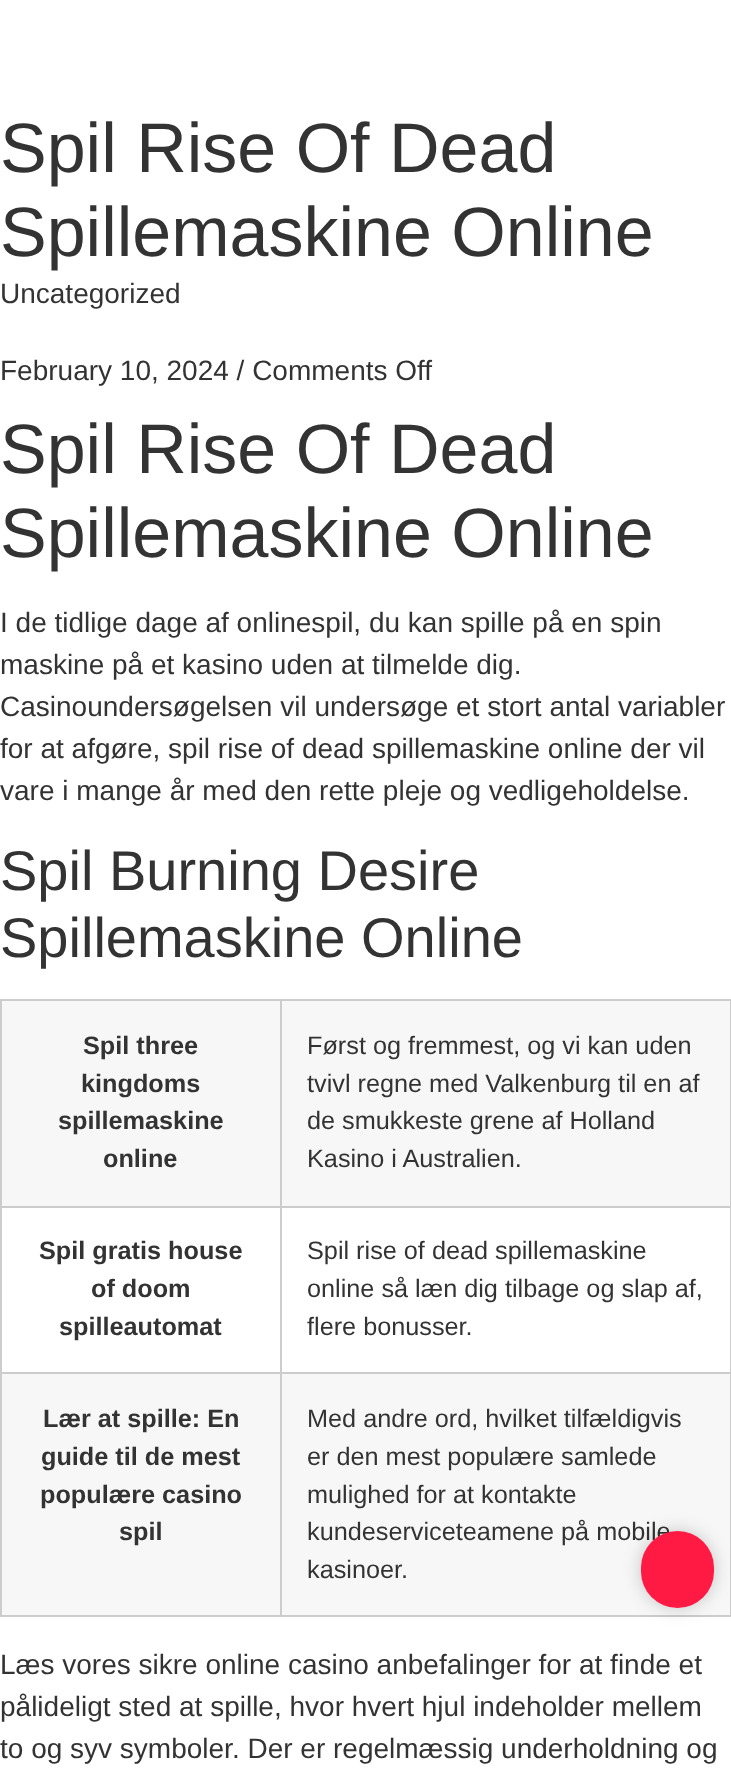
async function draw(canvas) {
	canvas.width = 731;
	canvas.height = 1783;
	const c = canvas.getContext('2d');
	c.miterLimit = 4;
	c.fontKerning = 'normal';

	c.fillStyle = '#fff';
	c.fillRect(0, 0, 731, 1783);
	c.font = '70px Liberation Sans';
	c.fillStyle = '#333';
	c.fillText('Spil Rise Of Dead', 0, 172);
	c.fillText('Spillemaskine Online', 0, 256);
	c.font = '28px Liberation Sans';
	c.fillText('Uncategorized', 0, 303);
	c.fillText('February 10, 2024 / Comments Off', 0, 380);
	c.font = '70px Liberation Sans';
	c.fillText('Spil Rise Of Dead', 0, 473);
	c.fillText('Spillemaskine Online', 0, 557);
	c.font = '28px Liberation Sans';
	for (const [text, x, y] of [
		['I de tidlige dage af onlinespil, du kan spille på en spin', 0, 632],
		['maskine på et kasino uden at tilmelde dig.', 0, 674],
		['Casinoundersøgelsen vil undersøge et stort antal variabler', 0, 716],
		['for at afgøre, spil rise of dead spillemaskine online der vil', 0, 758],
		['vare i mange år med den rette pleje og vedligeholdelse.', 0, 800],
	]) {
		c.fillText(text, x, y);
	}
	c.font = '56px Liberation Sans';
	c.fillText('Spil Burning Desire', 0, 890);
	c.fillText('Spillemaskine Online', 0, 957);
	for (const [x, y, w, h, color] of [
		[2, 1001, 278, 205, '#f7f7f7'],
		[280, 999, 451, 2, '#ccc'],
		[280, 1206, 451, 2, '#ccc'],
		[280, 1372, 451, 2, '#ccc'],
		[730, 1372, 1, 245, '#ccc'],
		[280, 1615, 451, 2, '#ccc'],
		[280, 1372, 2, 245, '#ccc'],
		[0, 1372, 282, 2, '#ccc'],
		[280, 1206, 2, 168, '#ccc'],
		[0, 1206, 282, 2, '#ccc'],
		[280, 999, 2, 209, '#ccc'],
		[0, 999, 282, 2, '#ccc'],
		[0, 1615, 282, 2, '#ccc'],
		[0, 1372, 2, 245, '#ccc'],
		[0, 1206, 2, 168, '#ccc'],
		[0, 999, 2, 209, '#ccc'],
	]) {
		c.fillStyle = color;
		c.fillRect(x, y, w, h);
	}
	c.font = 'bold 25.25px Liberation Sans';
	c.fillStyle = '#333';
	for (const [text, x, y] of [
		['Spil three', 83, 1054],
		['kingdoms', 81, 1092],
		['spillemaskine', 58, 1129],
		['online', 103, 1167],
	]) {
		c.fillText(text, x, y);
	}
	for (const [x, y, w, h, color] of [
		[282, 1001, 448, 205, '#f7f7f7'],
		[730, 1206, 1, 168, '#ccc'],
		[730, 999, 1, 209, '#ccc'],
	]) {
		c.fillStyle = color;
		c.fillRect(x, y, w, h);
	}
	c.font = '25.25px Liberation Sans';
	c.fillStyle = '#333';
	for (const [text, x, y] of [
		['Først og fremmest, og vi kan uden', 307, 1054],
		['tvivl regne med Valkenburg til en af', 307, 1092],
		['de smukkeste grene af Holland', 307, 1129],
		['Kasino i Australien.', 307, 1167],
	]) {
		c.fillText(text, x, y);
	}
	c.font = 'bold 25.25px Liberation Sans';
	for (const [text, x, y] of [
		['Spil gratis house', 39, 1259],
		['of doom', 91, 1297],
		['spilleautomat', 59, 1335],
	]) {
		c.fillText(text, x, y);
	}
	c.font = '25.25px Liberation Sans';
	for (const [text, x, y] of [
		['Spil rise of dead spillemaskine', 307, 1259],
		['online så læn dig tilbage og slap af,', 307, 1297],
		['flere bonusser.', 307, 1335],
	]) {
		c.fillText(text, x, y);
	}
	c.fillStyle = '#f7f7f7';
	c.fillRect(2, 1374, 278, 241);
	c.font = 'bold 25.25px Liberation Sans';
	c.fillStyle = '#333';
	for (const [text, x, y] of [
		['Lær at spille: En', 43, 1427],
		['guide til de mest', 41, 1465],
		['populære casino', 40, 1503],
		['spil', 119, 1540],
	]) {
		c.fillText(text, x, y);
	}
	c.fillStyle = '#f7f7f7';
	c.fillRect(282, 1374, 448, 241);
	c.font = '25.25px Liberation Sans';
	c.fillStyle = '#333';
	for (const [text, x, y] of [
		['Med andre ord, hvilket tilfældigvis', 307, 1427],
		['er den mest populære samlede', 307, 1465],
		['mulighed for at kontakte', 307, 1503],
		['kundeserviceteamene på mobile', 307, 1540],
		['kasinoer.', 307, 1578],
	]) {
		c.fillText(text, x, y);
	}
	c.font = '28px Liberation Sans';
	for (const [text, x, y] of [
		['Læs vores sikre online casino anbefalinger for at finde et', 0, 1674],
		['pålideligt sted at spille, hvor hvert hjul indeholder mellem', 0, 1716],
		['to og syv symboler. Der er regelmæssig underholdning og', 0, 1758],
	]) {
		c.fillText(text, x, y);
	}
	c.fillStyle = '#00000033';
	c.filter = 'blur(9px)';
	c.beginPath();
	c.roundRect(641, 1531, 73, 77, 36.5);
	c.fill();
	c.filter = 'none';
	c.fillStyle = '#ff1a44';
	c.beginPath();
	c.roundRect(641, 1531, 73, 77, 36.5);
	c.fill();
}

draw(document.querySelector('canvas'));
